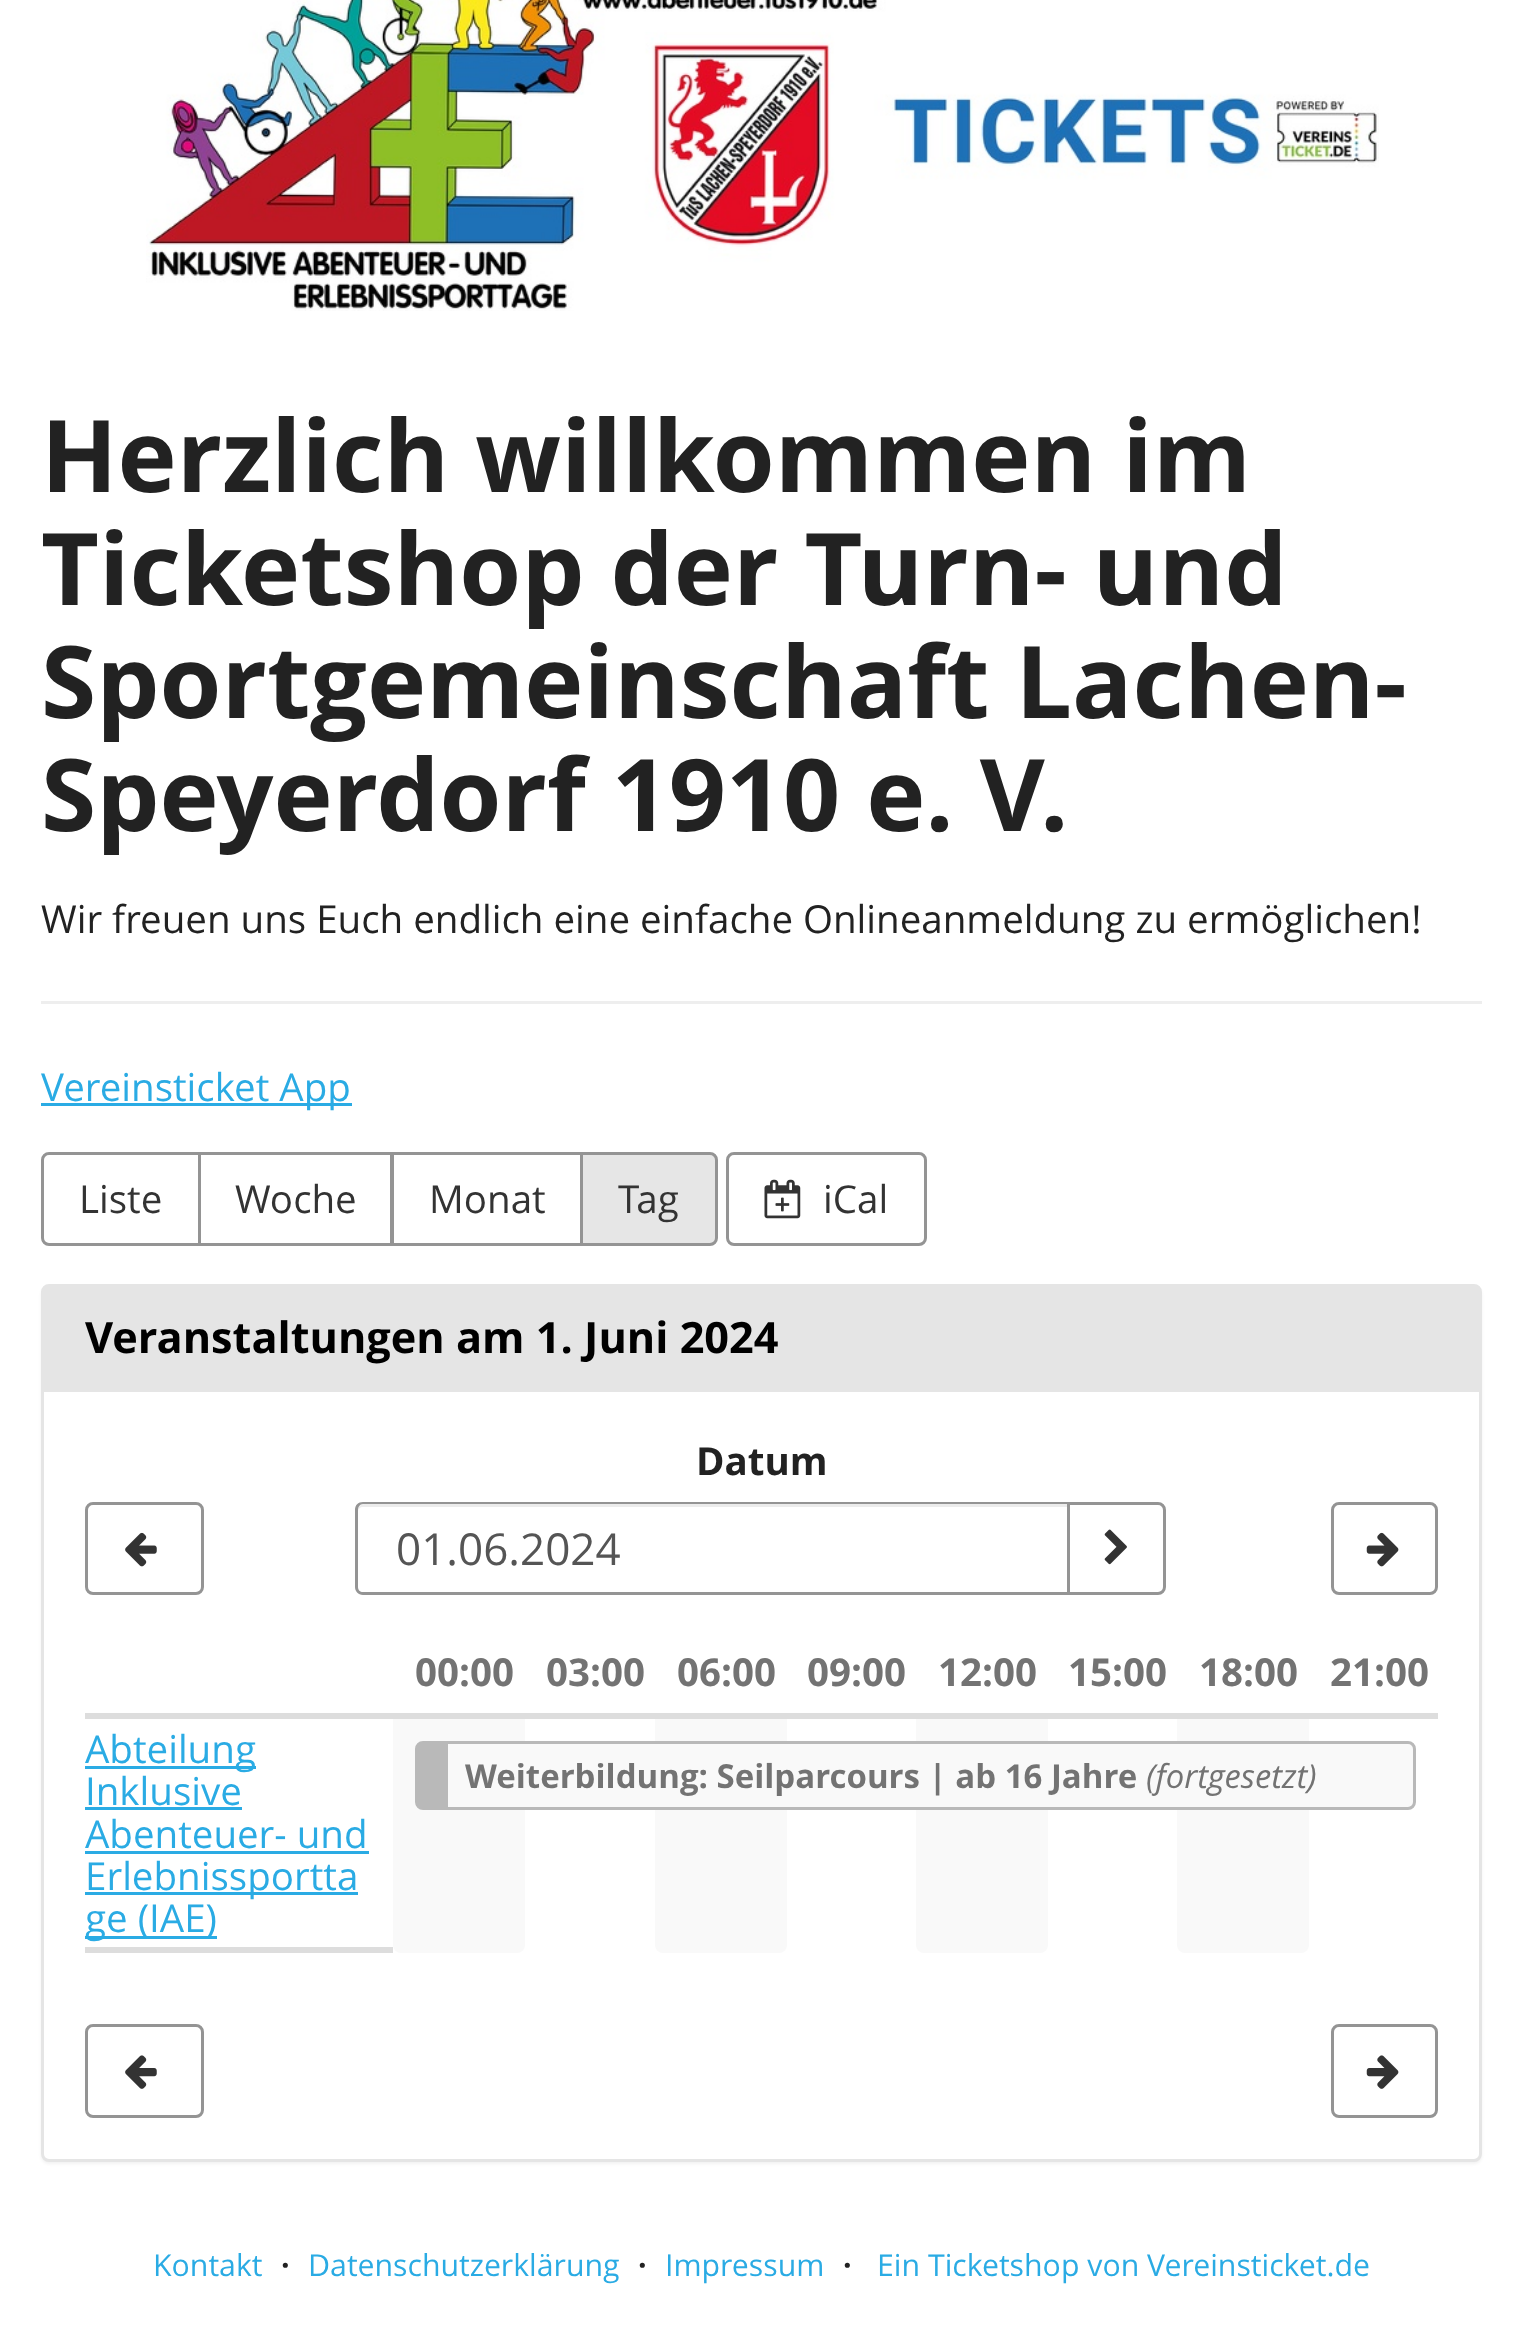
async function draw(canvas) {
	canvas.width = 1521;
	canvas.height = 2333;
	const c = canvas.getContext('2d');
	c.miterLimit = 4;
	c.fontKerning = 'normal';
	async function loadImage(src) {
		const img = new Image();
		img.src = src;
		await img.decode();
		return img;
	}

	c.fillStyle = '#fff';
	c.fillRect(0, 0, 1521, 2333);
	c.drawImage(await loadImage('img1.png'), 146, 0, 1233, 311);
	c.font = 'bold 100.1px Open Sans';
	c.fillStyle = '#222';
	for (const [text, x, y] of [
		['Herzlich willkommen im', 41, 492],
		['Ticketshop der Turn- und', 41, 605],
		['Sportgemeinschaft Lachen-', 41, 718],
		['Speyerdorf 1910 e. V.', 41, 831],
	]) {
		c.fillText(text, x, y);
	}
	c.font = '38.5px Open Sans';
	c.fillText('Wir freuen uns Euch endlich eine einfache Onlineanmeldung zu ermöglichen!', 41, 933);
	c.fillStyle = '#eee';
	c.fillRect(41, 1001, 1441, 3);
	c.fillStyle = '#2aabe4';
	c.fillRect(41, 1103, 311, 3);
	c.fillText('Vereinsticket App', 41, 1101);
	c.beginPath();
	c.roundRect(42.5, 1153.5, 157, 91, [6.5, 0, 0, 6.5]);
	c.strokeStyle = '#949494';
	c.lineWidth = 3;
	c.stroke();
	c.fillStyle = '#333';
	c.fillText('Liste', 79, 1213);
	c.strokeRect(199.5, 1153.5, 192, 91);
	c.fillText('Woche', 235, 1213);
	c.strokeRect(392.5, 1153.5, 189, 91);
	c.fillText('Monat', 429, 1213);
	c.fillStyle = '#e6e6e6';
	c.beginPath();
	c.roundRect(581.5, 1153.5, 135, 91, [0, 6.5, 6.5, 0]);
	c.fill();
	c.stroke();
	c.fillStyle = '#333';
	c.fillText('Tag', 618, 1213);
	c.beginPath();
	c.roundRect(727.5, 1153.5, 198, 91, 6.5);
	c.stroke();
	c.drawImage(await loadImage('img2.png'), 764, 1179, 37, 40);
	c.fillText('iCal', 823, 1213);
	c.fillStyle = '#0000000d';
	c.filter = 'blur(1.5px)';
	c.beginPath();
	c.roundRect(41, 1287, 1441, 877, 8);
	c.fill();
	c.filter = 'none';
	c.fillStyle = '#fff';
	c.beginPath();
	c.roundRect(42.5, 1285.5, 1438, 875, 6.5);
	c.fill();
	c.strokeStyle = '#e5e5e5';
	c.stroke();
	c.fillStyle = '#e5e5e5';
	c.fillRect(44, 1287, 1435, 105);
	c.font = 'bold 43.25px Open Sans';
	c.fillStyle = '#000';
	c.fillText('Veranstaltungen am 1. Juni 2024', 85, 1353);
	c.beginPath();
	c.roundRect(86.5, 1503.5, 116, 90, 6.5);
	c.strokeStyle = '#949494';
	c.stroke();
	c.drawImage(await loadImage('img3.png'), 125, 1532, 32, 35);
	c.font = 'bold 38.5px Open Sans';
	c.fillStyle = '#222';
	c.fillText('Datum', 696, 1475);
	c.fillStyle = '#ececec';
	c.beginPath();
	c.moveTo(363, 1507);
	c.lineTo(1067, 1507);
	c.lineTo(1067, 1504);
	c.lineTo(364, 1504);
	c.bezierCurveTo(361, 1504, 358, 1507, 358, 1510);
	c.lineTo(358, 1512);
	c.bezierCurveTo(358, 1509, 360, 1507, 363, 1507);
	c.closePath();
	c.fill();
	c.fillStyle = '#949494';
	c.beginPath();
	c.moveTo(363, 1502);
	c.lineTo(1067, 1502);
	c.lineTo(1067, 1595);
	c.lineTo(363, 1595);
	c.bezierCurveTo(358, 1595, 355, 1591, 355, 1587);
	c.lineTo(355, 1510);
	c.bezierCurveTo(355, 1505, 358, 1502, 363, 1502);
	c.closePath();
	c.moveTo(363, 1504);
	c.lineTo(1067, 1504);
	c.lineTo(1067, 1592);
	c.lineTo(363, 1592);
	c.bezierCurveTo(360, 1592, 358, 1590, 358, 1587);
	c.lineTo(358, 1510);
	c.bezierCurveTo(358, 1507, 360, 1504, 363, 1504);
	c.closePath();
	c.fill('evenodd');
	c.font = '44px Open Sans';
	c.fillStyle = '#555';
	c.fillText('01.06.2024', 396, 1565);
	c.beginPath();
	c.roundRect(1068.5, 1503.5, 96, 90, [0, 6.5, 6.5, 0]);
	c.stroke();
	c.drawImage(await loadImage('img4.png'), 1104, 1529, 23, 36);
	c.beginPath();
	c.roundRect(1332.5, 1503.5, 104, 90, 6.5);
	c.stroke();
	c.drawImage(await loadImage('img5.png'), 1366, 1532, 33, 35);
	c.fillStyle = '#ddd';
	c.fillRect(85, 1713, 1353, 6);
	c.font = 'bold 38.5px Open Sans';
	c.fillStyle = '#737373';
	for (const [text, x, y] of [
		['00:00', 415, 1686],
		['03:00', 546, 1686],
		['06:00', 677, 1686],
		['09:00', 807, 1686],
		['12:00', 938, 1686],
		['15:00', 1068, 1686],
		['18:00', 1199, 1686],
		['21:00', 1330, 1686],
	]) {
		c.fillText(text, x, y);
	}
	c.fillStyle = '#ddd';
	c.fillRect(85, 1947, 308, 6);
	c.fillStyle = '#2aabe4';
	c.fillRect(85, 1766, 171, 3);
	c.font = '38.5px Open Sans';
	c.fillText('Abteilung', 85, 1763);
	c.fillText('Inklusive', 85, 1805);
	c.fillRect(85, 1807, 157, 3);
	c.fillText('Abenteuer- und', 85, 1848);
	c.fillRect(85, 1851, 284, 3);
	c.fillRect(85, 1892, 273, 3);
	c.fillText('Erlebnissportta', 85, 1890);
	c.fillRect(85, 1936, 132, 3);
	c.fillText('ge (IAE)', 85, 1932);
	c.fillStyle = '#f9f9f9';
	c.beginPath();
	c.roundRect(393, 1719, 132, 234, [0, 0, 8, 8]);
	c.fill();
	c.beginPath();
	c.roundRect(655, 1719, 132, 234, [0, 0, 8, 8]);
	c.fill();
	c.beginPath();
	c.roundRect(916, 1719, 132, 234, [0, 0, 8, 8]);
	c.fill();
	c.beginPath();
	c.roundRect(1177, 1719, 132, 234, [0, 0, 8, 8]);
	c.fill();
	c.beginPath();
	c.roundRect(416.5, 1742.5, 998, 66, 6.5);
	c.fill();
	c.strokeStyle = '#b9b9b9';
	c.stroke();
	c.fillStyle = '#b9b9b9';
	c.fillRect(418, 1744, 30, 63);
	c.font = 'bold 33px Open Sans';
	c.fillStyle = '#737373';
	c.fillText('Weiterbildung: Seilparcours | ab 16 Jahre', 465, 1788);
	c.font = 'italic 33px Open Sans';
	c.fillText('(fortgesetzt)', 1146, 1788);
	c.beginPath();
	c.roundRect(86.5, 2025.5, 116, 91, 6.5);
	c.strokeStyle = '#949494';
	c.stroke();
	c.drawImage(await loadImage('img6.png'), 125, 2055, 32, 34);
	c.beginPath();
	c.roundRect(1332.5, 2025.5, 104, 91, 6.5);
	c.stroke();
	c.drawImage(await loadImage('img7.png'), 1366, 2055, 33, 34);
	c.font = '30.25px Open Sans';
	c.fillStyle = '#2aabe4';
	c.fillText('Kontakt', 153, 2276);
	c.font = 'bold 30.25px Open Sans';
	c.fillStyle = '#222';
	c.fillText('·', 281, 2276);
	c.font = '30.25px Open Sans';
	c.fillStyle = '#2aabe4';
	c.fillText('Datenschutzerklärung', 308, 2276);
	c.font = 'bold 30.25px Open Sans';
	c.fillStyle = '#222';
	c.fillText('·', 638, 2276);
	c.font = '30.25px Open Sans';
	c.fillStyle = '#2aabe4';
	c.fillText('Impressum', 665, 2276);
	c.font = 'bold 30.25px Open Sans';
	c.fillStyle = '#222';
	c.fillText('·', 843, 2276);
	c.font = '30.25px Open Sans';
	c.fillStyle = '#2aabe4';
	c.fillText('Ein Ticketshop von Vereinsticket.de', 877, 2276);
}

draw(document.querySelector('canvas'));
